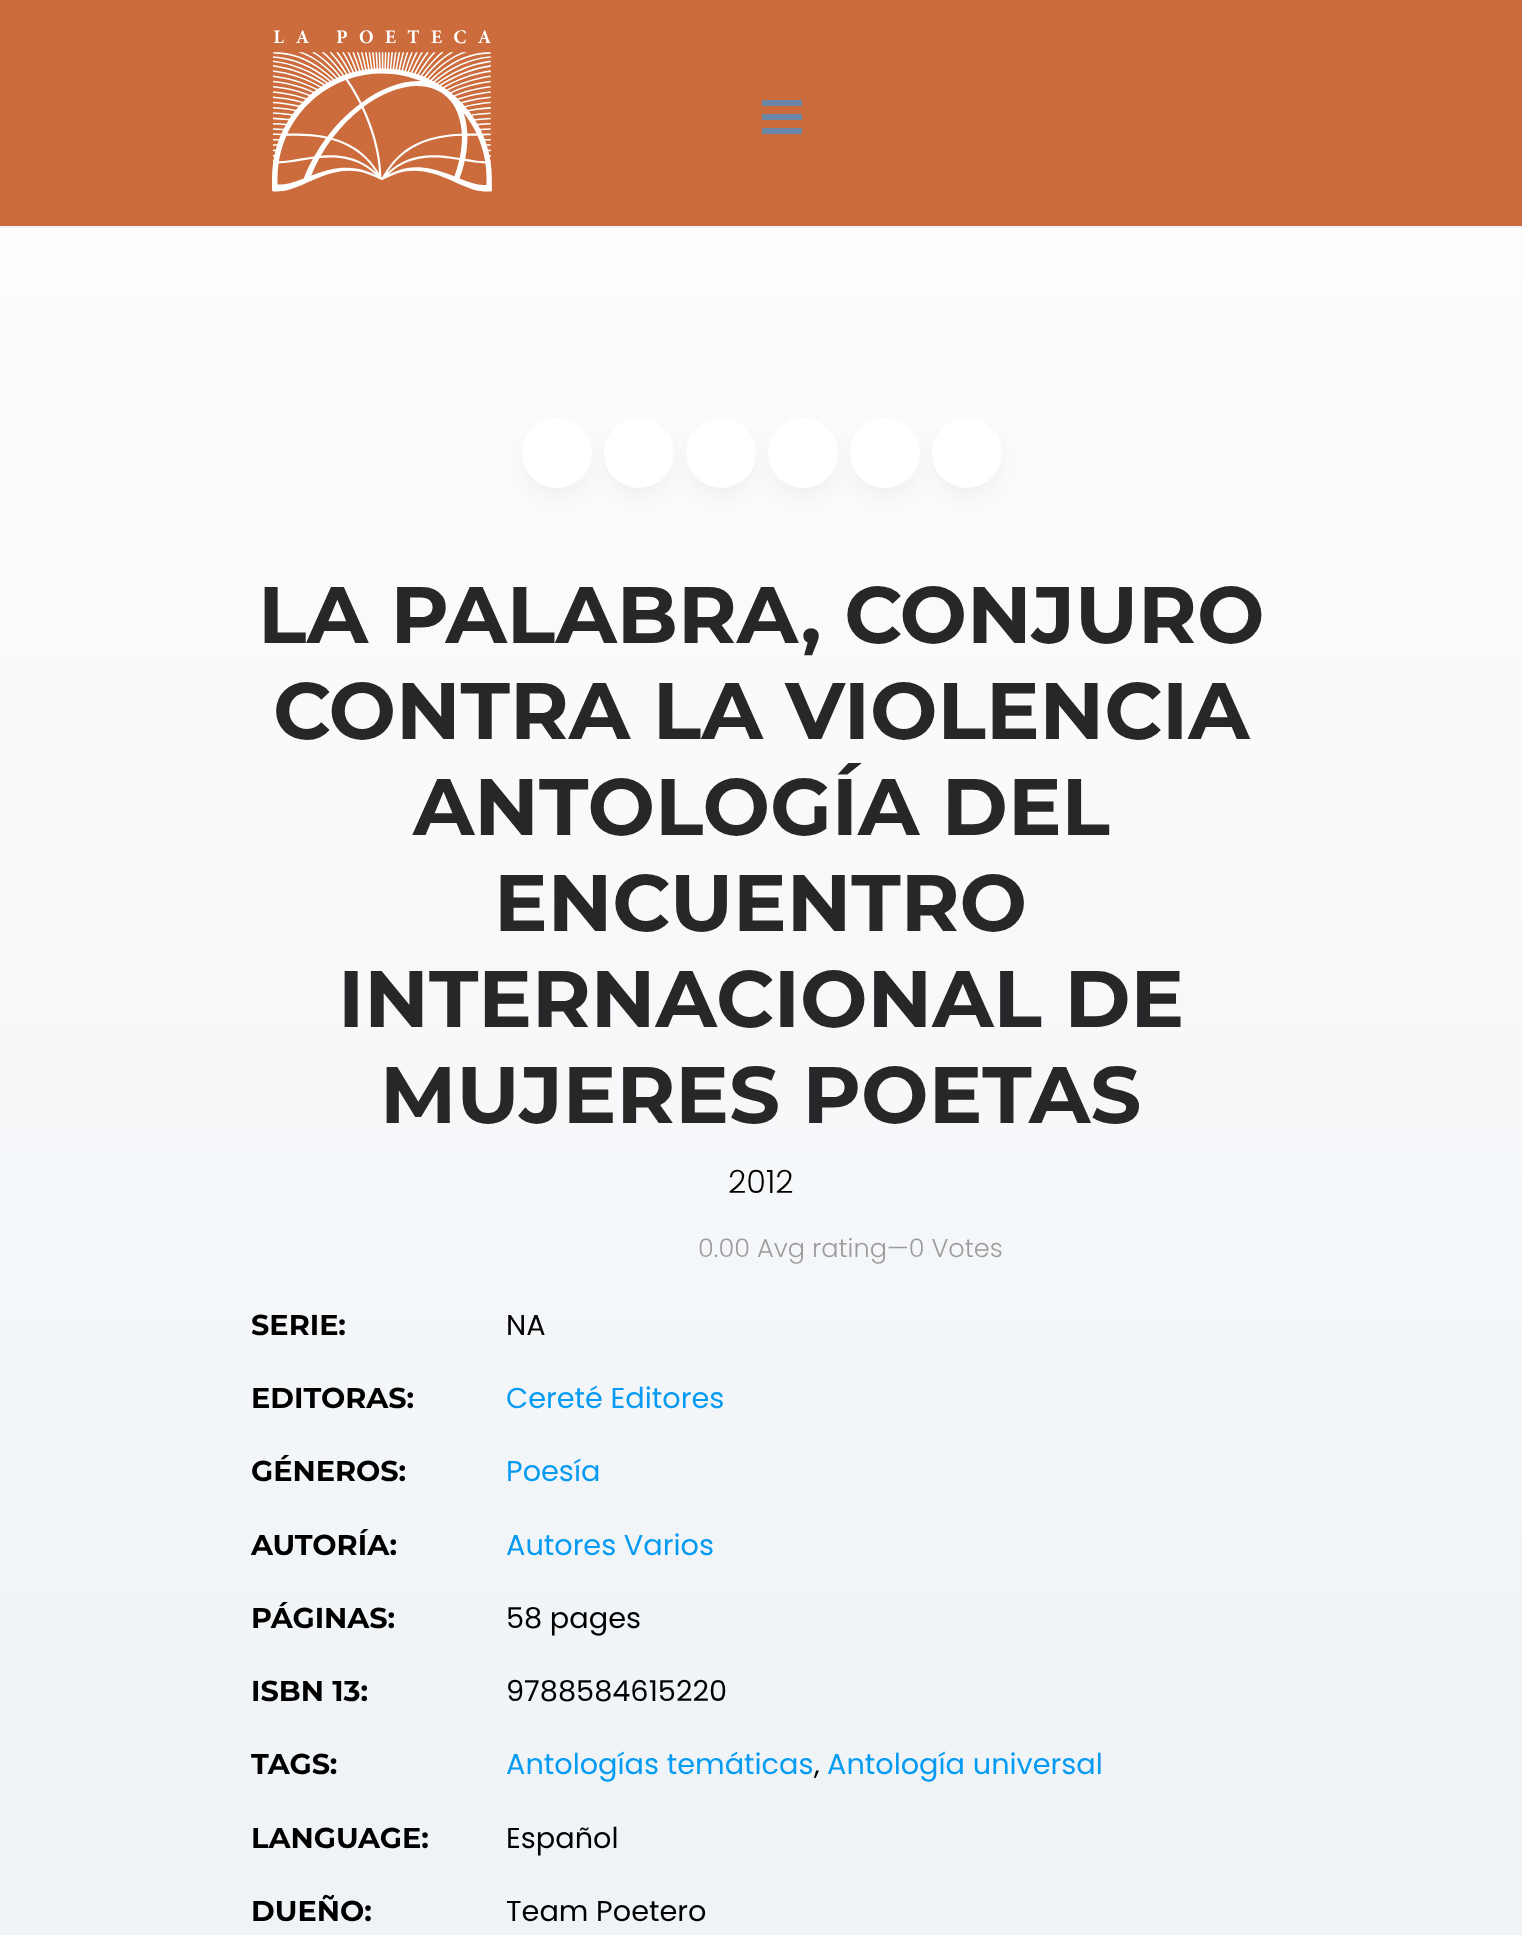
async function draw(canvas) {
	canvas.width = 1522;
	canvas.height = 1935;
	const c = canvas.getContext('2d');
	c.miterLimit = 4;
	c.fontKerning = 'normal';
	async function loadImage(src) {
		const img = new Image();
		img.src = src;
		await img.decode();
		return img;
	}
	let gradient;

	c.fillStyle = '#fff';
	c.fillRect(0, 0, 1522, 1935);
	gradient = c.createLinearGradient(761, 0, 761, 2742);
	gradient.addColorStop(0, '#fefefe');
	gradient.addColorStop(1, '#e9eef3');
	c.fillStyle = gradient;
	c.fillRect(0, 228, 1522, 1707);
	c.fillStyle = '#cc6c3c';
	c.fillRect(0, 0, 1522, 226);
	c.fillStyle = '#f3f3f3';
	c.fillRect(0, 226, 1522, 2);
	c.drawImage(await loadImage('img1.png'), 272, 30, 220, 162);
	for (const [x, y, w, h, color] of [
		[762, 114, 40, 6, '#6a85a6'],
		[762, 100, 40, 6, '#6a85a6'],
		[762, 128, 40, 6, '#6a85a6'],
	]) {
		c.fillStyle = color;
		c.fillRect(x, y, w, h);
	}
	c.fillStyle = '#0303031a';
	c.filter = 'blur(15px)';
	c.beginPath();
	c.roundRect(532, 438, 50, 50, 25);
	c.fill();
	c.filter = 'none';
	c.fillStyle = '#fff';
	c.beginPath();
	c.arc(557, 453, 35, 0, 2 * Math.PI);
	c.fill();
	c.fillStyle = '#0000001a';
	c.filter = 'blur(15px)';
	c.beginPath();
	c.roundRect(614, 438, 50, 50, 25);
	c.fill();
	c.filter = 'none';
	c.fillStyle = '#fff';
	c.beginPath();
	c.arc(639, 453, 35, 0, 2 * Math.PI);
	c.fill();
	c.fillStyle = '#0000001a';
	c.filter = 'blur(15px)';
	c.beginPath();
	c.roundRect(696, 438, 50, 50, 25);
	c.fill();
	c.filter = 'none';
	c.fillStyle = '#fff';
	c.beginPath();
	c.arc(721, 453, 35, 0, 2 * Math.PI);
	c.fill();
	c.fillStyle = '#0000001a';
	c.filter = 'blur(15px)';
	c.beginPath();
	c.roundRect(778, 438, 50, 50, 25);
	c.fill();
	c.filter = 'none';
	c.fillStyle = '#fff';
	c.beginPath();
	c.arc(803, 453, 35, 0, 2 * Math.PI);
	c.fill();
	c.fillStyle = '#0000001a';
	c.filter = 'blur(15px)';
	c.beginPath();
	c.roundRect(860, 438, 50, 50, 25);
	c.fill();
	c.filter = 'none';
	c.fillStyle = '#fff';
	c.beginPath();
	c.arc(885, 453, 35, 0, 2 * Math.PI);
	c.fill();
	c.fillStyle = '#0000001a';
	c.filter = 'blur(15px)';
	c.beginPath();
	c.roundRect(942, 438, 50, 50, 25);
	c.fill();
	c.filter = 'none';
	c.fillStyle = '#fff';
	c.beginPath();
	c.arc(967, 453, 35, 0, 2 * Math.PI);
	c.fill();
	c.font = 'bold 80px Montserrat';
	c.fillStyle = '#272629';
	for (const [text, x, y] of [
		['LA PALABRA, CONJURO', 258, 643],
		['CONTRA LA VIOLENCIA', 273, 739],
		['ANTOLOGÍA DEL', 413, 835],
		['ENCUENTRO', 494, 931],
		['INTERNACIONAL DE', 338, 1027],
		['MUJERES POETAS', 380, 1123],
	]) {
		c.fillText(text, x, y);
	}
	c.font = '300 32px Poppins';
	c.fillStyle = '#000';
	c.fillText('2012', 728, 1193);
	c.font = '300 25.6px Poppins';
	c.fillStyle = '#9c9c9c';
	c.fillText('0.00 Avg rating—0 Votes', 698, 1257);
	c.font = 'bold 28.75px Montserrat';
	c.fillStyle = '#000';
	c.fillText('SERIE:', 251, 1335);
	c.font = '28.75px Poppins';
	c.fillText('NA', 506, 1335);
	c.font = 'bold 28.75px Montserrat';
	c.fillText('EDITORAS:', 251, 1408);
	c.font = '28.75px Poppins';
	c.fillStyle = '#059bf3';
	c.fillText('Cereté Editores', 506, 1408);
	c.font = 'bold 28.75px Montserrat';
	c.fillStyle = '#000';
	c.fillText('GÉNEROS:', 251, 1481);
	c.font = '28.75px Poppins';
	c.fillStyle = '#059bf3';
	c.fillText('Poesía', 506, 1481);
	c.font = 'bold 28.75px Montserrat';
	c.fillStyle = '#000';
	c.fillText('AUTORÍA:', 251, 1555);
	c.font = '28.75px Poppins';
	c.fillStyle = '#059bf3';
	c.fillText('Autores Varios', 506, 1555);
	c.font = 'bold 28.75px Montserrat';
	c.fillStyle = '#000';
	c.fillText('PÁGINAS:', 251, 1628);
	c.font = '28.75px Poppins';
	c.fillText('58 pages', 506, 1628);
	c.font = 'bold 28.75px Montserrat';
	c.fillText('ISBN 13:', 251, 1701);
	c.font = '28.75px Poppins';
	c.fillText('9788584615220', 506, 1701);
	c.font = 'bold 28.75px Montserrat';
	c.fillText('TAGS:', 251, 1774);
	c.font = '28.75px Poppins';
	c.fillStyle = '#059bf3';
	c.fillText('Antologías temáticas', 506, 1774);
	c.fillStyle = '#000';
	c.fillText(',', 814, 1774);
	c.fillStyle = '#059bf3';
	c.fillText('Antología universal', 827, 1774);
	c.font = 'bold 28.75px Montserrat';
	c.fillStyle = '#000';
	c.fillText('LANGUAGE:', 251, 1848);
	c.font = '28.75px Poppins';
	c.fillText('Español', 506, 1848);
	c.font = 'bold 28.75px Montserrat';
	c.fillText('DUEÑO:', 251, 1921);
	c.font = '28.75px Poppins';
	c.fillText('Team Poetero', 506, 1921);
}

draw(document.querySelector('canvas'));
